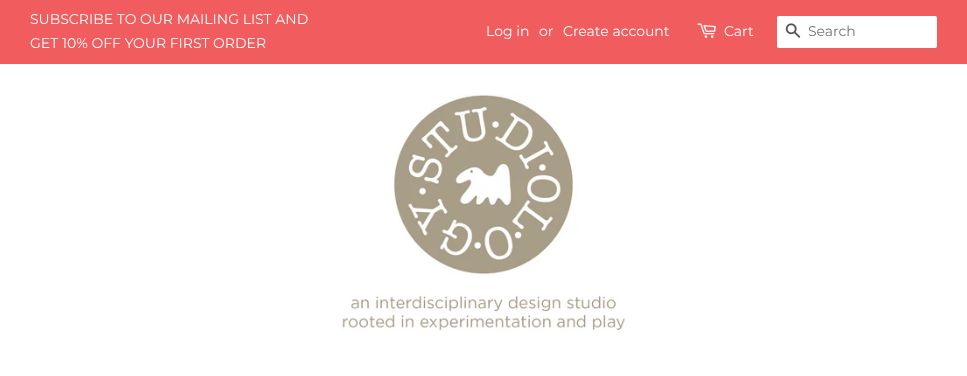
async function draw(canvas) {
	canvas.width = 967;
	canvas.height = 376;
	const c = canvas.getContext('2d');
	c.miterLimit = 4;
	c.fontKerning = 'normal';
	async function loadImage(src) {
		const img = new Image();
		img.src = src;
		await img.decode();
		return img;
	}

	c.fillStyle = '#fff';
	c.fillRect(0, 0, 967, 376);
	c.fillStyle = '#f15c5e';
	c.fillRect(0, 0, 967, 64);
	c.font = '14px Montserrat';
	c.fillStyle = '#fff';
	for (const [text, x, y] of [
		['SUBSCRIBE TO OUR MAILING LIST AND', 30, 24],
		['GET 10% OFF YOUR FIRST ORDER', 30, 48],
		['Log in', 486, 36],
		['or', 539, 36],
		['Create account', 563, 36],
	]) {
		c.fillText(text, x, y);
	}
	c.drawImage(await loadImage('img1.png'), 697, 23, 19, 15);
	c.fillText('Cart', 724, 36);
	c.beginPath();
	c.roundRect(777, 16, 160, 32, 2);
	c.fill();
	c.drawImage(await loadImage('img2.png'), 785, 23, 16, 15);
	c.fillStyle = '#757575';
	c.fillText('Search', 808, 36);
	c.drawImage(await loadImage('img3.png'), 340, 94, 287, 238);
}

draw(document.querySelector('canvas'));
